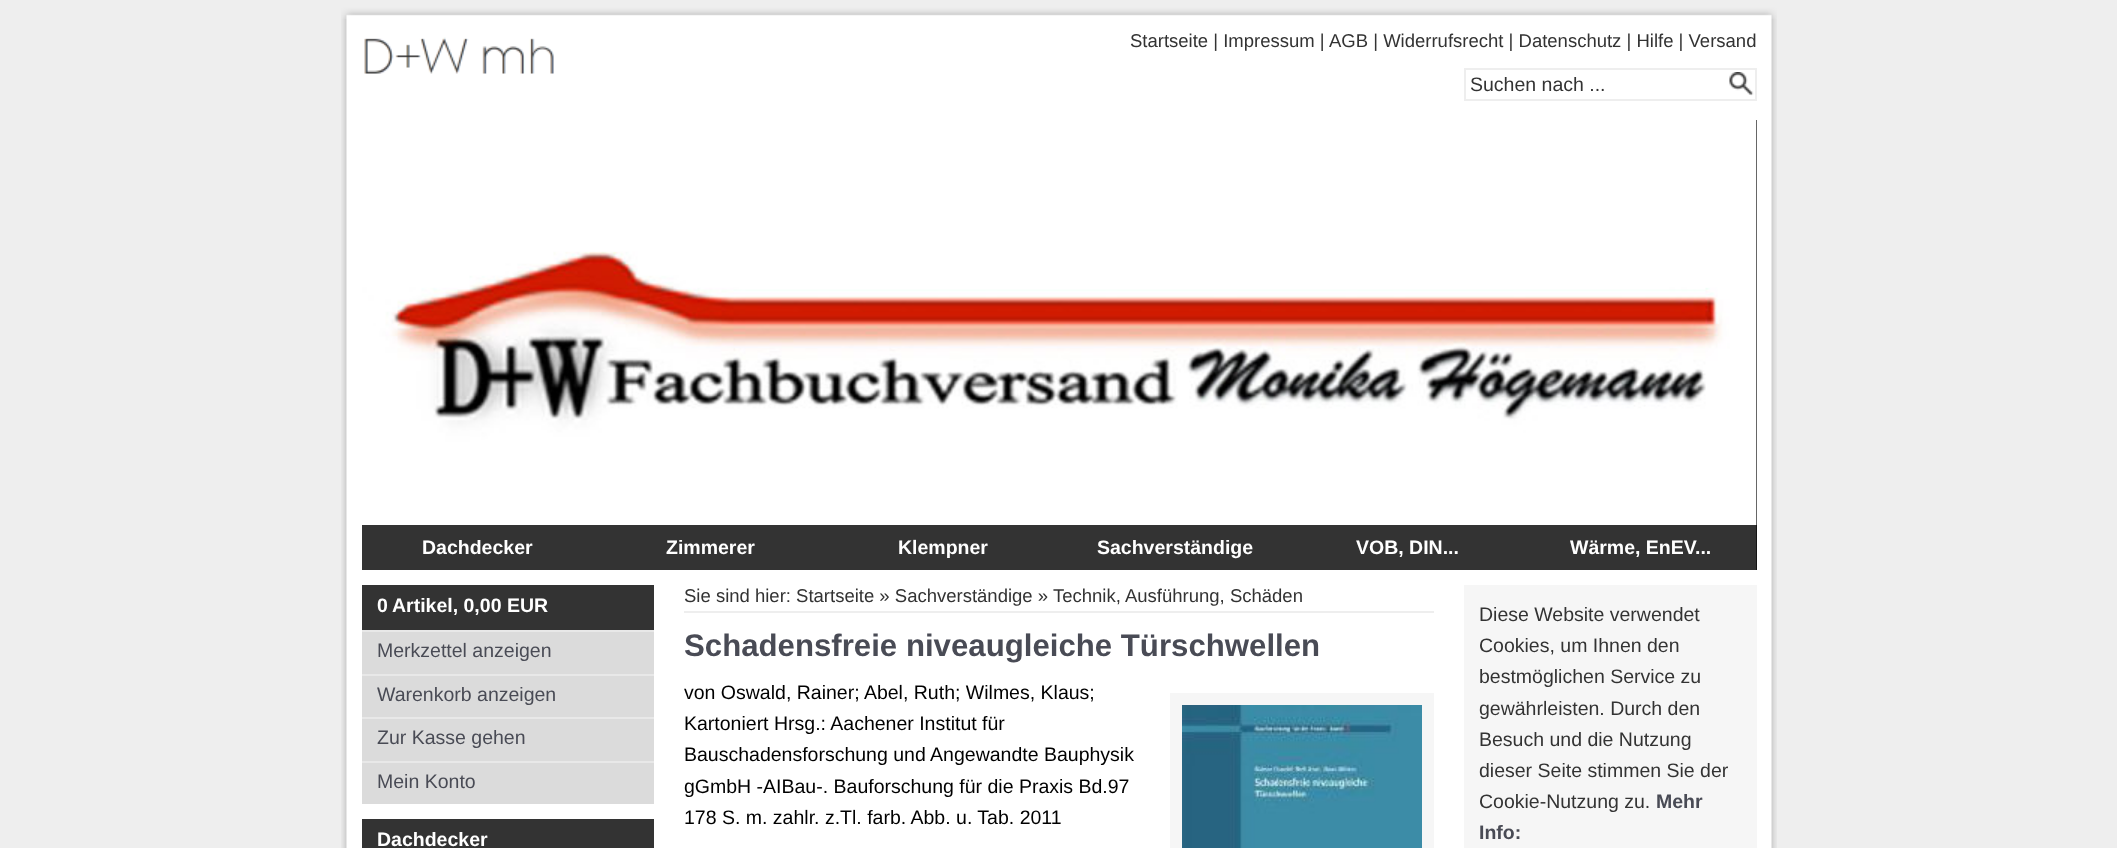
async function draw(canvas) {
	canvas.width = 2117;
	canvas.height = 848;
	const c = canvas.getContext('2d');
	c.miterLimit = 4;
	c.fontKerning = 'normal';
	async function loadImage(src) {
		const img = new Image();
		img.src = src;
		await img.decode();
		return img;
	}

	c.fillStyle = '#eee';
	c.fillRect(0, 0, 2117, 848);
	c.drawImage(await loadImage('img1.png'), 341, 19, 1436, 829);
	c.drawImage(await loadImage('img2.png'), 341, 0, 1436, 19);
	c.drawImage(await loadImage('img3.png'), 364, 37, 190, 37);
	c.font = '18.5px Liberation Sans';
	c.fillStyle = '#333';
	c.fillText('Startseite | Impressum |', 1130, 47);
	c.fillText('AGB | Widerrufsrecht | Datenschutz | Hilfe | Versand', 1329, 47);
	c.strokeStyle = '#eee';
	c.lineWidth = 2;
	c.strokeRect(1465, 69, 291, 31);
	c.font = '19.5px Liberation Sans';
	c.fillText('Suchen nach ...', 1470, 91);
	c.drawImage(await loadImage('img4.png'), 1729, 72, 25, 24);
	c.fillRect(1756, 120, 1, 450);
	c.drawImage(await loadImage('img5.png'), 362, 120, 1395, 450);
	c.fillRect(362, 525, 1162, 45);
	c.font = 'bold 19.5px Liberation Sans';
	c.fillStyle = '#fff';
	for (const [text, x, y] of [
		['Dachdecker', 422, 554],
		['Zimmerer', 666, 554],
		['Klempner', 898, 554],
		['Sachverständige', 1097, 554],
		['VOB, DIN...', 1356, 554],
	]) {
		c.fillText(text, x, y);
	}
	c.fillStyle = '#000000cc';
	c.fillRect(1524, 525, 233, 45);
	c.fillStyle = '#fff';
	c.fillText('Wärme, EnEV...', 1570, 554);
	c.fillStyle = '#333';
	c.fillRect(362, 585, 292, 45);
	c.fillStyle = '#fff';
	c.fillText('0', 377, 612);
	c.fillText('Artikel, 0,00 EUR', 392, 612);
	c.fillStyle = '#dbdbdb';
	c.fillRect(362, 632, 292, 42);
	c.fillStyle = '#e8e8e8';
	c.fillRect(362, 630, 292, 2);
	c.font = '19.5px Liberation Sans';
	c.fillStyle = '#494b55';
	c.fillText('Merkzettel anzeigen', 377, 657);
	c.fillStyle = '#dbdbdb';
	c.fillRect(362, 676, 292, 41);
	c.fillStyle = '#e8e8e8';
	c.fillRect(362, 674, 292, 2);
	c.fillStyle = '#494b55';
	c.fillText('Warenkorb anzeigen', 377, 701);
	c.fillStyle = '#dbdbdb';
	c.fillRect(362, 719, 292, 42);
	c.fillStyle = '#e8e8e8';
	c.fillRect(362, 717, 292, 2);
	c.fillStyle = '#494b55';
	c.fillText('Zur Kasse gehen', 377, 744);
	c.fillStyle = '#dbdbdb';
	c.fillRect(362, 763, 292, 41);
	c.fillStyle = '#e8e8e8';
	c.fillRect(362, 761, 292, 2);
	c.fillStyle = '#494b55';
	c.fillText('Mein Konto', 377, 788);
	c.fillStyle = '#333';
	c.fillRect(362, 819, 292, 29);
	c.font = 'bold 19.5px Liberation Sans';
	c.fillStyle = '#fff';
	c.fillText('Dachdecker', 377, 846);
	c.fillStyle = '#eee';
	c.fillRect(684, 611, 750, 2);
	c.font = '18.5px Liberation Sans';
	c.fillStyle = '#333';
	c.fillText('Sie sind hier: Startseite » Sachverständige »', 684, 602);
	c.fillText('Technik, Ausführung, Schäden', 1053, 602);
	c.font = 'bold 31.2px Liberation Sans';
	c.fillStyle = '#494b55';
	c.fillText('Schadensfreie niveaugleiche Türschwellen', 684, 656);
	c.font = '19.5px Liberation Sans';
	c.fillStyle = '#000';
	for (const [text, x, y] of [
		['von Oswald, Rainer; Abel, Ruth; Wilmes, Klaus;', 684, 699],
		['Kartoniert Hrsg.: Aachener Institut für', 684, 730],
		['Bauschadensforschung und Angewandte Bauphysik', 684, 761],
		['gGmbH -AIBau-. Bauforschung für die Praxis Bd.97', 684, 793],
		['178 S. m. zahlr. z.Tl. farb. Abb. u. Tab. 2011', 684, 824],
	]) {
		c.fillText(text, x, y);
	}
	c.fillStyle = '#f6f6f6';
	c.fillRect(1170, 693, 264, 155);
	c.drawImage(await loadImage('img6.png'), 1182, 705, 240, 143);
	c.fillRect(1464, 585, 293, 263);
	c.fillStyle = '#333';
	for (const [text, x, y] of [
		['Diese Website verwendet', 1479, 621],
		['Cookies, um Ihnen den', 1479, 652],
		['bestmöglichen Service zu', 1479, 683],
		['gewährleisten. Durch den', 1479, 715],
		['Besuch und die Nutzung', 1479, 746],
		['dieser Seite stimmen Sie der', 1479, 777],
		['Cookie-Nutzung zu.', 1479, 808],
	]) {
		c.fillText(text, x, y);
	}
	c.font = 'bold 19.5px Liberation Sans';
	c.fillStyle = '#494b55';
	c.fillText('Mehr', 1656, 808);
	c.fillText('Info:', 1479, 839);
}

draw(document.querySelector('canvas'));
